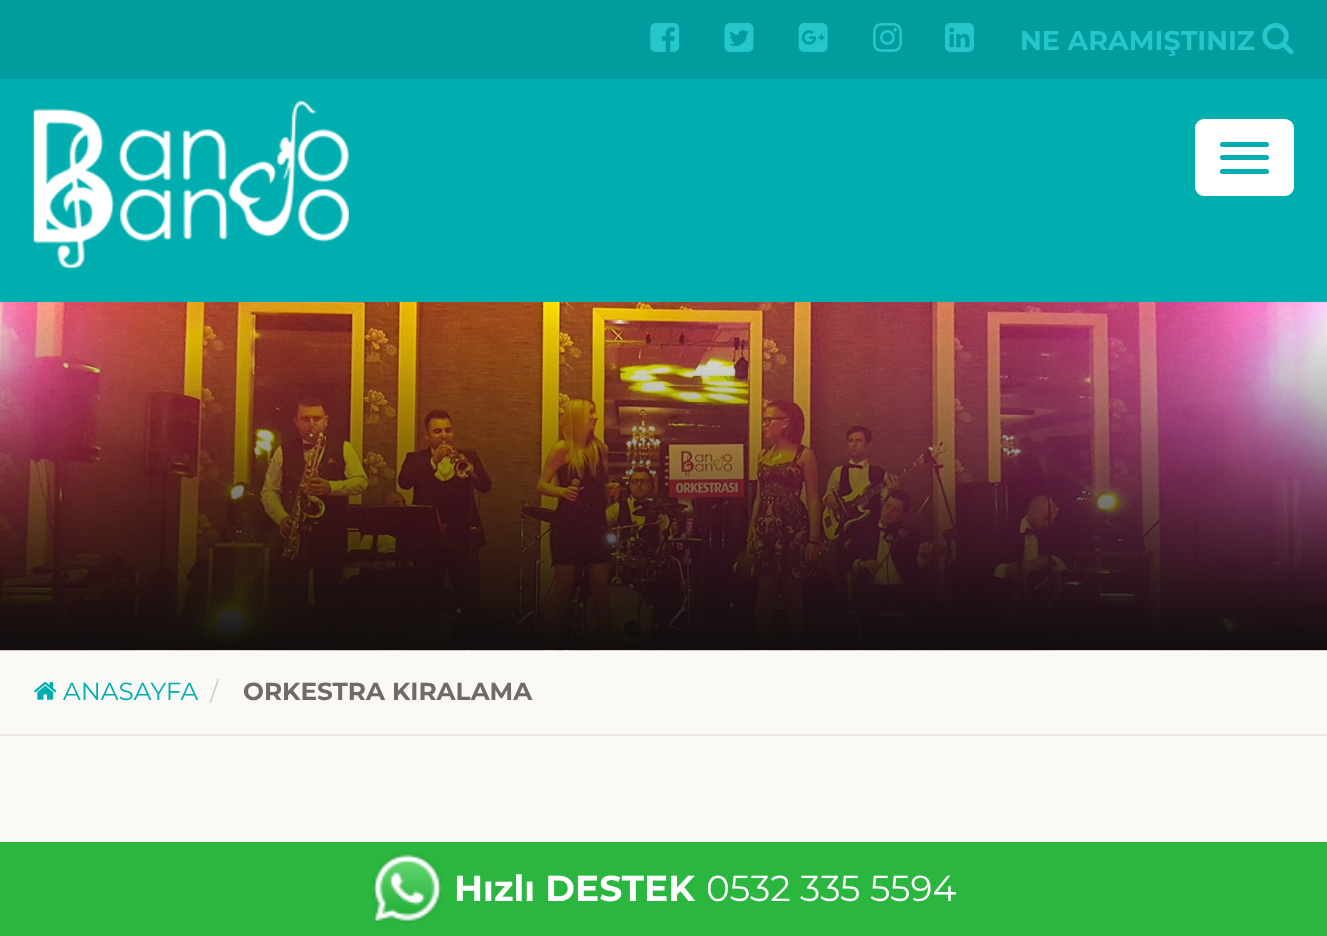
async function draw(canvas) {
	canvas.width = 1327;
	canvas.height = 936;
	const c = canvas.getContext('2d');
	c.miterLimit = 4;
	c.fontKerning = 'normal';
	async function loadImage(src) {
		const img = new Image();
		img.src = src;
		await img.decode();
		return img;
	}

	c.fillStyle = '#faf9f5';
	c.fillRect(0, 0, 1327, 936);
	c.fillStyle = '#019d9e';
	c.fillRect(0, 0, 1327, 79);
	c.drawImage(await loadImage('img1.png'), 650, 23, 30, 29);
	c.drawImage(await loadImage('img2.png'), 724, 23, 30, 29);
	c.drawImage(await loadImage('img3.png'), 798, 23, 30, 29);
	c.drawImage(await loadImage('img4.png'), 873, 23, 29, 29);
	c.drawImage(await loadImage('img5.png'), 945, 23, 29, 29);
	c.font = 'bold 27px Montserrat';
	c.fillStyle = '#25c7c8';
	c.fillText('NE ARAMIŞTINIZ', 1020, 50);
	c.drawImage(await loadImage('img6.png'), 1262, 23, 32, 32);
	c.fillStyle = '#00aeaf';
	c.fillRect(0, 79, 1327, 223);
	c.drawImage(await loadImage('img7.png'), 33, 101, 316, 167);
	c.fillStyle = '#fff';
	c.beginPath();
	c.roundRect(1195, 119, 99, 77, 9);
	c.fill();
	c.fillStyle = '#00aeaf';
	c.beginPath();
	c.roundRect(1220, 142, 49, 5, 2.5);
	c.fill();
	c.beginPath();
	c.roundRect(1220, 155, 49, 5, 2.5);
	c.fill();
	c.beginPath();
	c.roundRect(1220, 169, 49, 5, 2.5);
	c.fill();
	c.drawImage(await loadImage('img8.png'), 0, 302, 1327, 349);
	c.fillStyle = '#e9e6e0';
	c.fillRect(0, 734, 1327, 2);
	c.drawImage(await loadImage('img9.png'), 34, 682, 23, 18);
	c.font = '24.75px Montserrat';
	c.fillStyle = '#00aeaf';
	c.fillText('ANASAYFA', 63, 700);
	c.fillStyle = '#ccc';
	c.fillText('/', 210, 700);
	c.font = 'bold 24.75px Montserrat';
	c.fillStyle = '#706a68';
	c.fillText('ORKESTRA KIRALAMA', 243, 700);
	c.fillStyle = '#2bb640';
	c.fillRect(0, 842, 1327, 94);
	c.drawImage(await loadImage('img10.png'), 373, 853, 70, 70);
	c.font = 'bold 36px Montserrat';
	c.fillStyle = '#fff';
	c.fillText('Hızlı DESTEK', 454, 901);
	c.font = '36px Montserrat';
	c.fillText('0532 335 5594', 706, 901);
}

draw(document.querySelector('canvas'));
